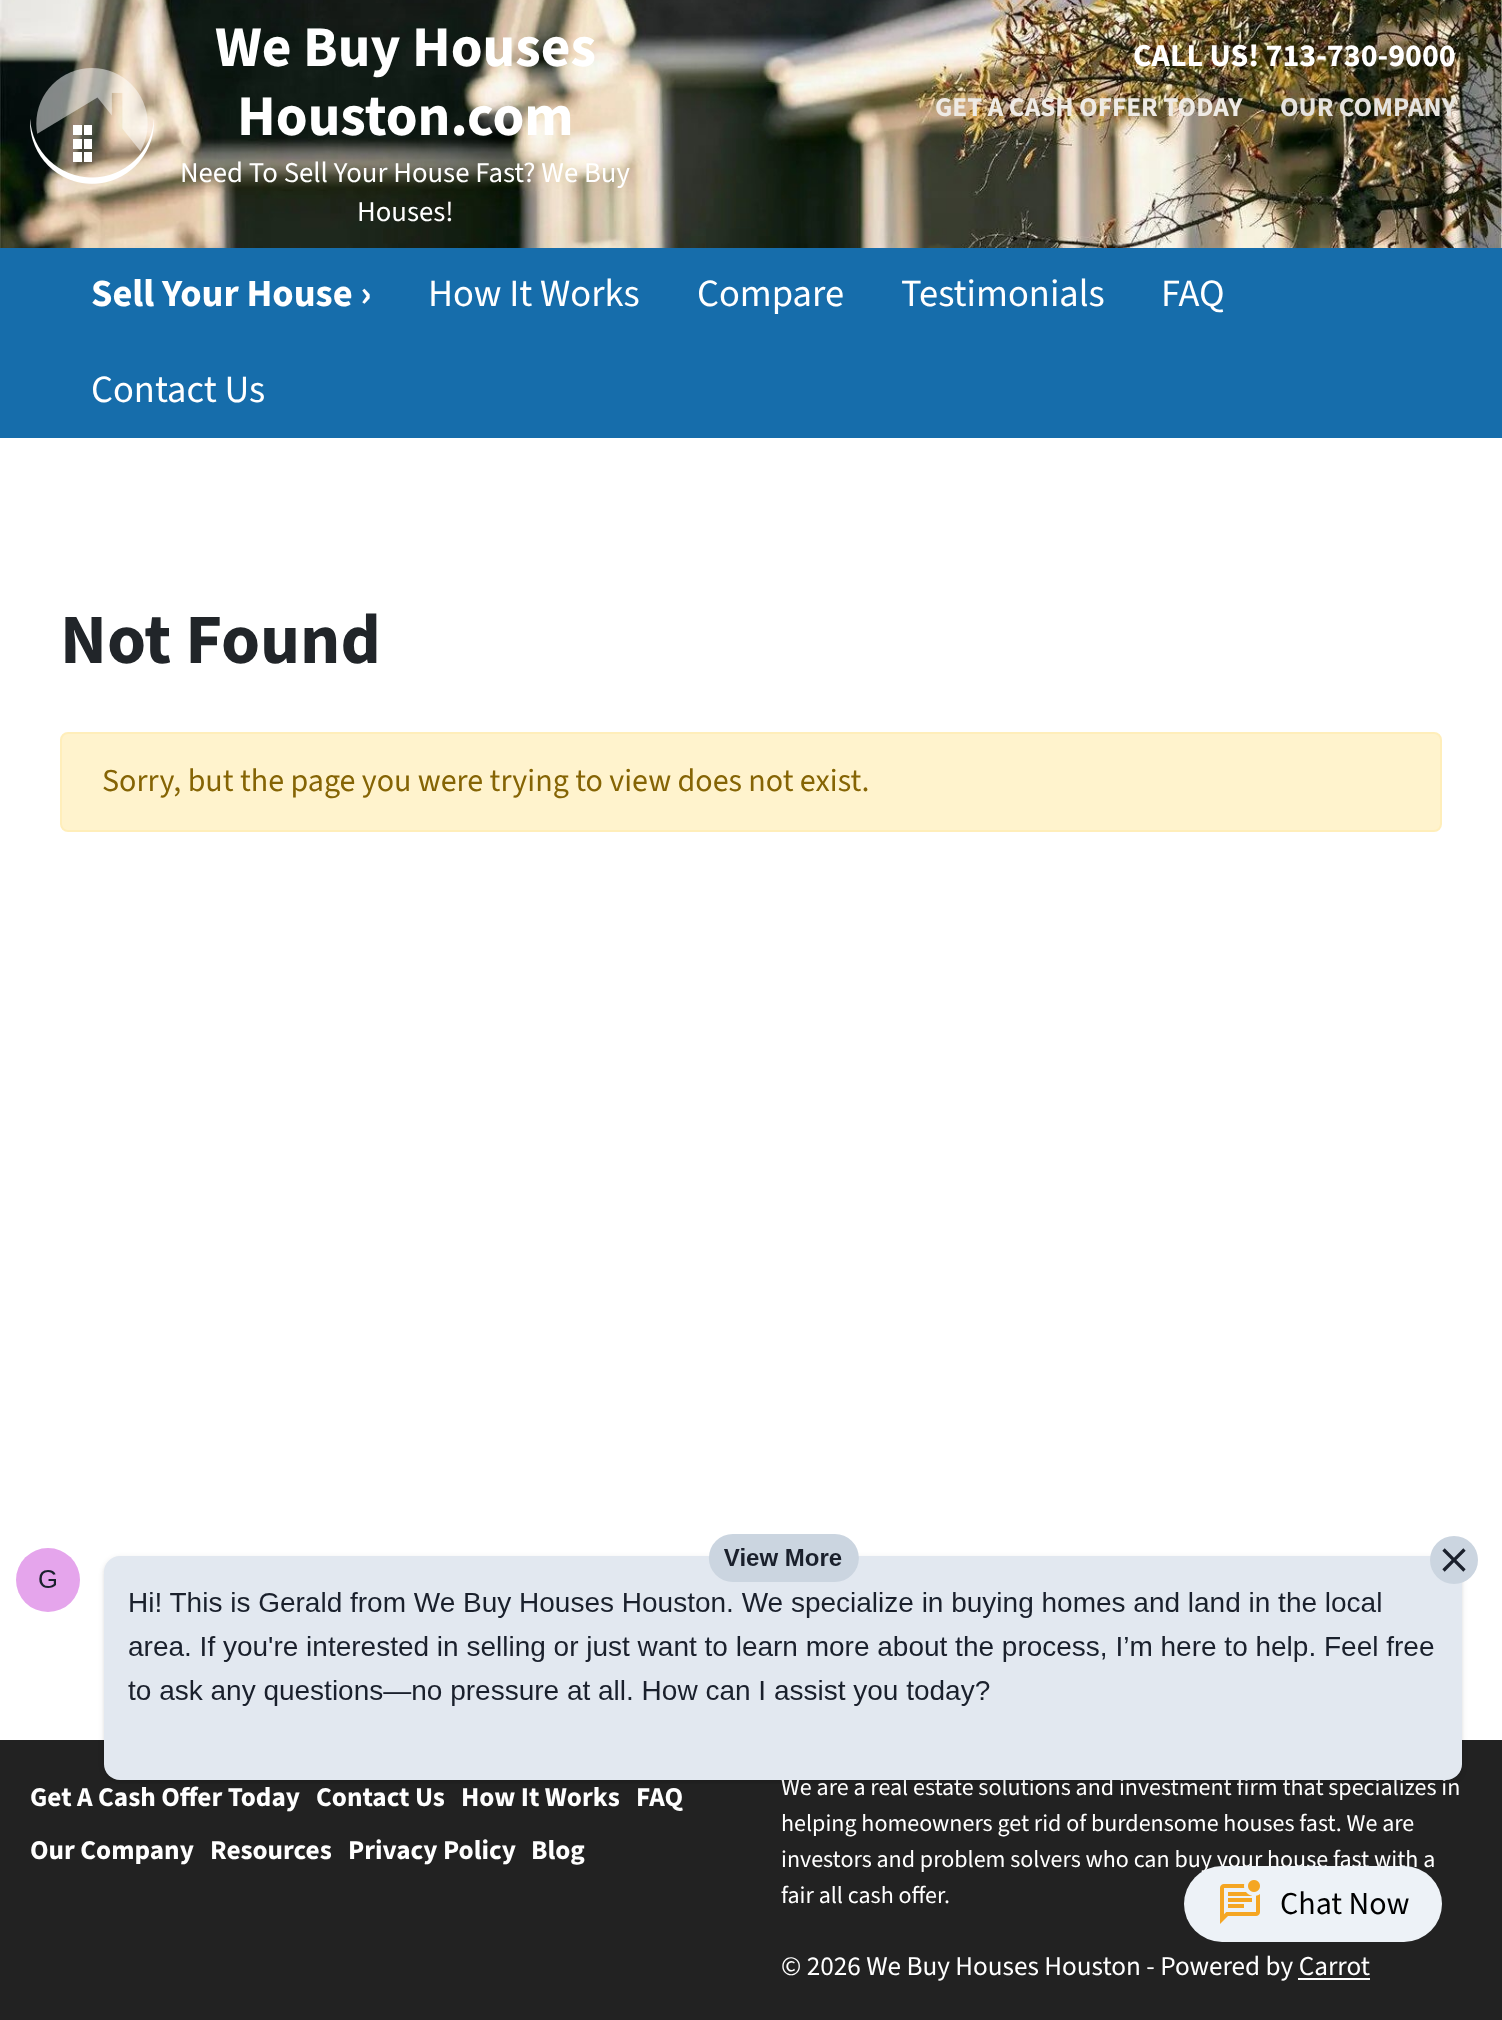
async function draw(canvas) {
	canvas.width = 1502;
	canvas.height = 2020;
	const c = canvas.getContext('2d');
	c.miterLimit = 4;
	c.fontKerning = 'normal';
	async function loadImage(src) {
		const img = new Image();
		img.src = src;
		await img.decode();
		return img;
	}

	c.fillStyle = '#fff';
	c.fillRect(0, 0, 1502, 2020);
	c.drawImage(await loadImage('img1.png'), 0, 0, 1502, 248);
	c.drawImage(await loadImage('img2.png'), 30, 68, 124, 116);
	c.font = 'bold 57.5px "Source Sans 3"';
	c.fillText('We Buy Houses', 215, 66);
	c.fillText('Houston.com', 237, 135);
	c.font = '28.75px "Source Sans 3"';
	c.fillText('Need To Sell Your House Fast? We Buy', 180, 182);
	c.fillText('Houses!', 357, 221);
	c.font = 'bold 32px "Source Sans 3"';
	c.fillText('CALL US! 713-730-9000', 1133, 66);
	c.font = 'bold 27.2px "Source Sans 3"';
	c.fillStyle = '#efebe6';
	c.fillText('GET A CASH OFFER TODAY', 935, 116);
	c.fillStyle = '#e6e4e0';
	c.fillText('OUR COMPANY', 1280, 116);
	c.fillStyle = '#166dab';
	c.fillRect(0, 248, 1502, 190);
	c.font = 'bold 38.5px "Source Sans 3"';
	c.fillStyle = '#fff';
	c.fillText('Sell Your House ›', 91, 306);
	c.font = '38.5px "Source Sans 3"';
	for (const [text, x, y] of [
		['How It Works', 428, 306],
		['Compare', 697, 306],
		['Testimonials', 901, 306],
		['FAQ', 1161, 306],
		['Contact Us', 91, 402],
	]) {
		c.fillText(text, x, y);
	}
	c.font = 'bold 70.5px "Source Sans 3"';
	c.fillStyle = '#212529';
	c.fillText('Not Found', 60, 663);
	c.fillStyle = '#fff3cd';
	c.beginPath();
	c.roundRect(61, 733, 1380, 98, 7);
	c.fill();
	c.strokeStyle = '#ffeeba';
	c.lineWidth = 2;
	c.stroke();
	c.font = '32px "Source Sans 3"';
	c.fillStyle = '#856404';
	c.fillText('Sorry, but the page you were trying to view does not exist.', 102, 791);
	c.fillStyle = '#222';
	c.fillRect(0, 1740, 1502, 280);
	c.font = '24px "Source Sans 3"';
	c.fillStyle = '#fff';
	c.fillText('We are a real estate solutions and investment firm that specializes in', 781, 1795);
	c.drawImage(await loadImage('img3.png'), 16, 1534, 1462, 250);
	c.font = 'bold 27.2px "Source Sans 3"';
	for (const [text, x, y] of [
		['Get A Cash Offer Today', 30, 1806],
		['Contact Us', 316, 1806],
		['How It Works', 461, 1806],
		['FAQ', 636, 1806],
		['Our Company', 30, 1859],
		['Resources', 210, 1859],
		['Privacy Policy', 348, 1859],
		['Blog', 531, 1859],
	]) {
		c.fillText(text, x, y);
	}
	c.font = '24px "Source Sans 3"';
	for (const [text, x, y] of [
		['helping homeowners get rid of burdensome houses fast. We are', 781, 1831],
		['investors and problem solvers who can buy your house fast with a', 781, 1867],
		['fair all cash offer.', 781, 1903],
	]) {
		c.fillText(text, x, y);
	}
	c.font = '27.2px "Source Sans 3"';
	c.fillText('© 2026 We Buy Houses Houston - Powered by Carrot', 781, 1975);
	c.fillRect(1298, 1978, 72, 2);
	c.fillStyle = '#edf2f7';
	c.beginPath();
	c.roundRect(1184, 1866, 258, 76, 38);
	c.fill();
	c.drawImage(await loadImage('img4.png'), 1220, 1880, 40, 44);
	c.font = '32px "Source Sans 3"';
	c.fillStyle = '#000';
	c.fillText('Chat Now', 1280, 1914);
}

draw(document.querySelector('canvas'));
